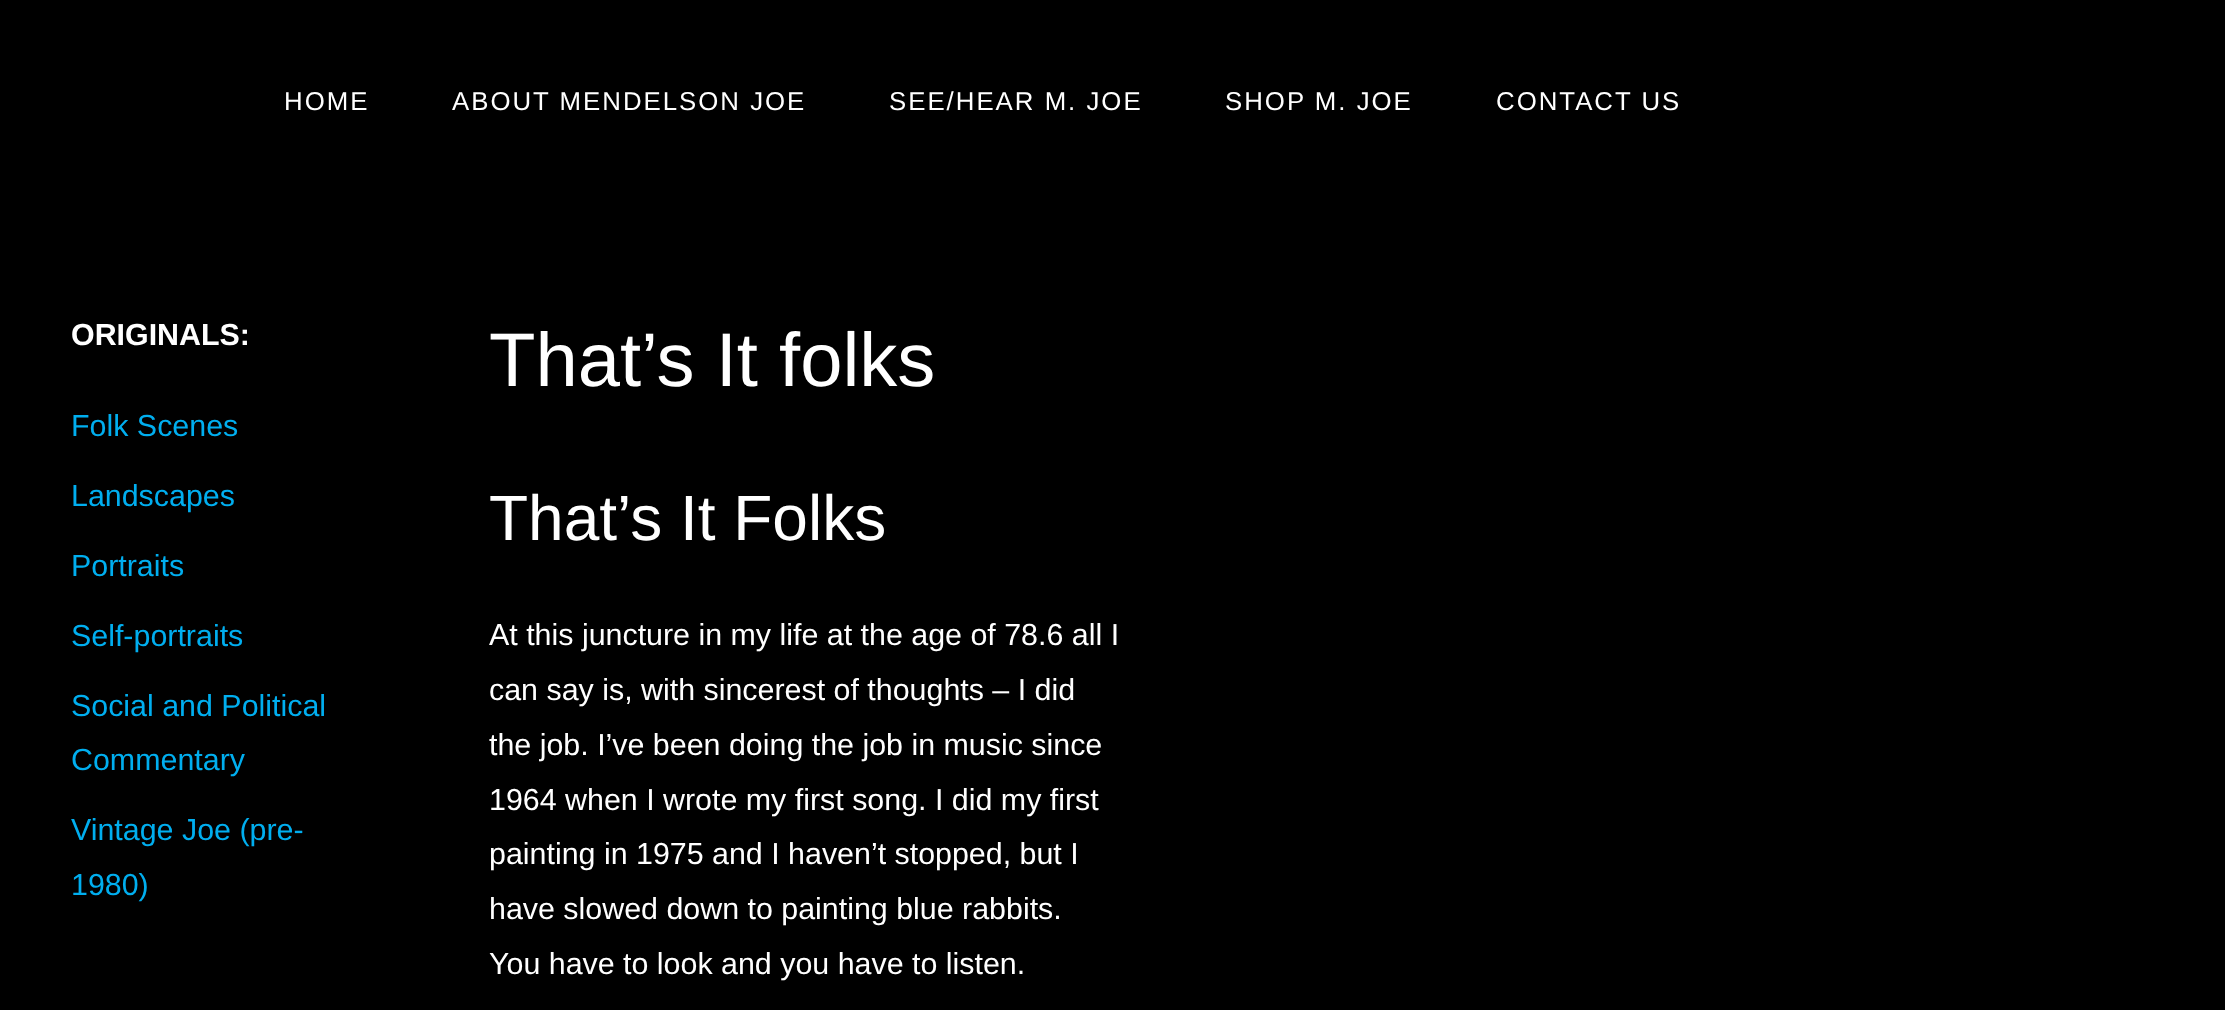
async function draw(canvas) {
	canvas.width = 2225;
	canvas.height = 1010;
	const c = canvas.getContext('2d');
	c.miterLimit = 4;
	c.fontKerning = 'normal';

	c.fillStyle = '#000';
	c.fillRect(0, 0, 2225, 1010);
	c.letterSpacing = '2px';
	c.font = '25.8px Liberation Sans';
	c.fillStyle = '#fff';
	for (const [text, x, y] of [
		['HOME', 284, 110],
		['ABOUT MENDELSON JOE', 452, 110],
		['SEE/HEAR M. JOE', 889, 110],
		['SHOP M. JOE', 1225, 110],
		['CONTACT US', 1496, 110],
	]) {
		c.fillText(text, x, y);
	}
	c.letterSpacing = '0px';
	c.font = 'bold 30.4px Liberation Sans';
	c.fillText('ORIGINALS:', 71, 345);
	c.font = '30.4px Liberation Sans';
	c.fillStyle = '#00aeef';
	for (const [text, x, y] of [
		['Folk Scenes', 71, 436],
		['Landscapes', 71, 506],
		['Portraits', 71, 576],
		['Self-portraits', 71, 646],
		['Social and Political', 71, 716],
		['Commentary', 71, 770],
		['Vintage Joe (pre-', 71, 840],
		['1980)', 71, 895],
	]) {
		c.fillText(text, x, y);
	}
	c.font = '76px Liberation Sans';
	c.fillStyle = '#fff';
	c.fillText('That’s It folks', 489, 386);
	c.font = '64px Liberation Sans';
	c.fillText('That’s It Folks', 489, 540);
	c.font = '30.4px Liberation Sans';
	for (const [text, x, y] of [
		['At this juncture in my life at the age of 78.6 all I', 489, 645],
		['can say is, with sincerest of thoughts – I did', 489, 700],
		['the job. I’ve been doing the job in music since', 489, 755],
		['1964 when I wrote my first song. I did my first', 489, 810],
		['painting in 1975 and I haven’t stopped, but I', 489, 864],
		['have slowed down to painting blue rabbits.', 489, 919],
		['You have to look and you have to listen.', 489, 974],
	]) {
		c.fillText(text, x, y);
	}
}

draw(document.querySelector('canvas'));
